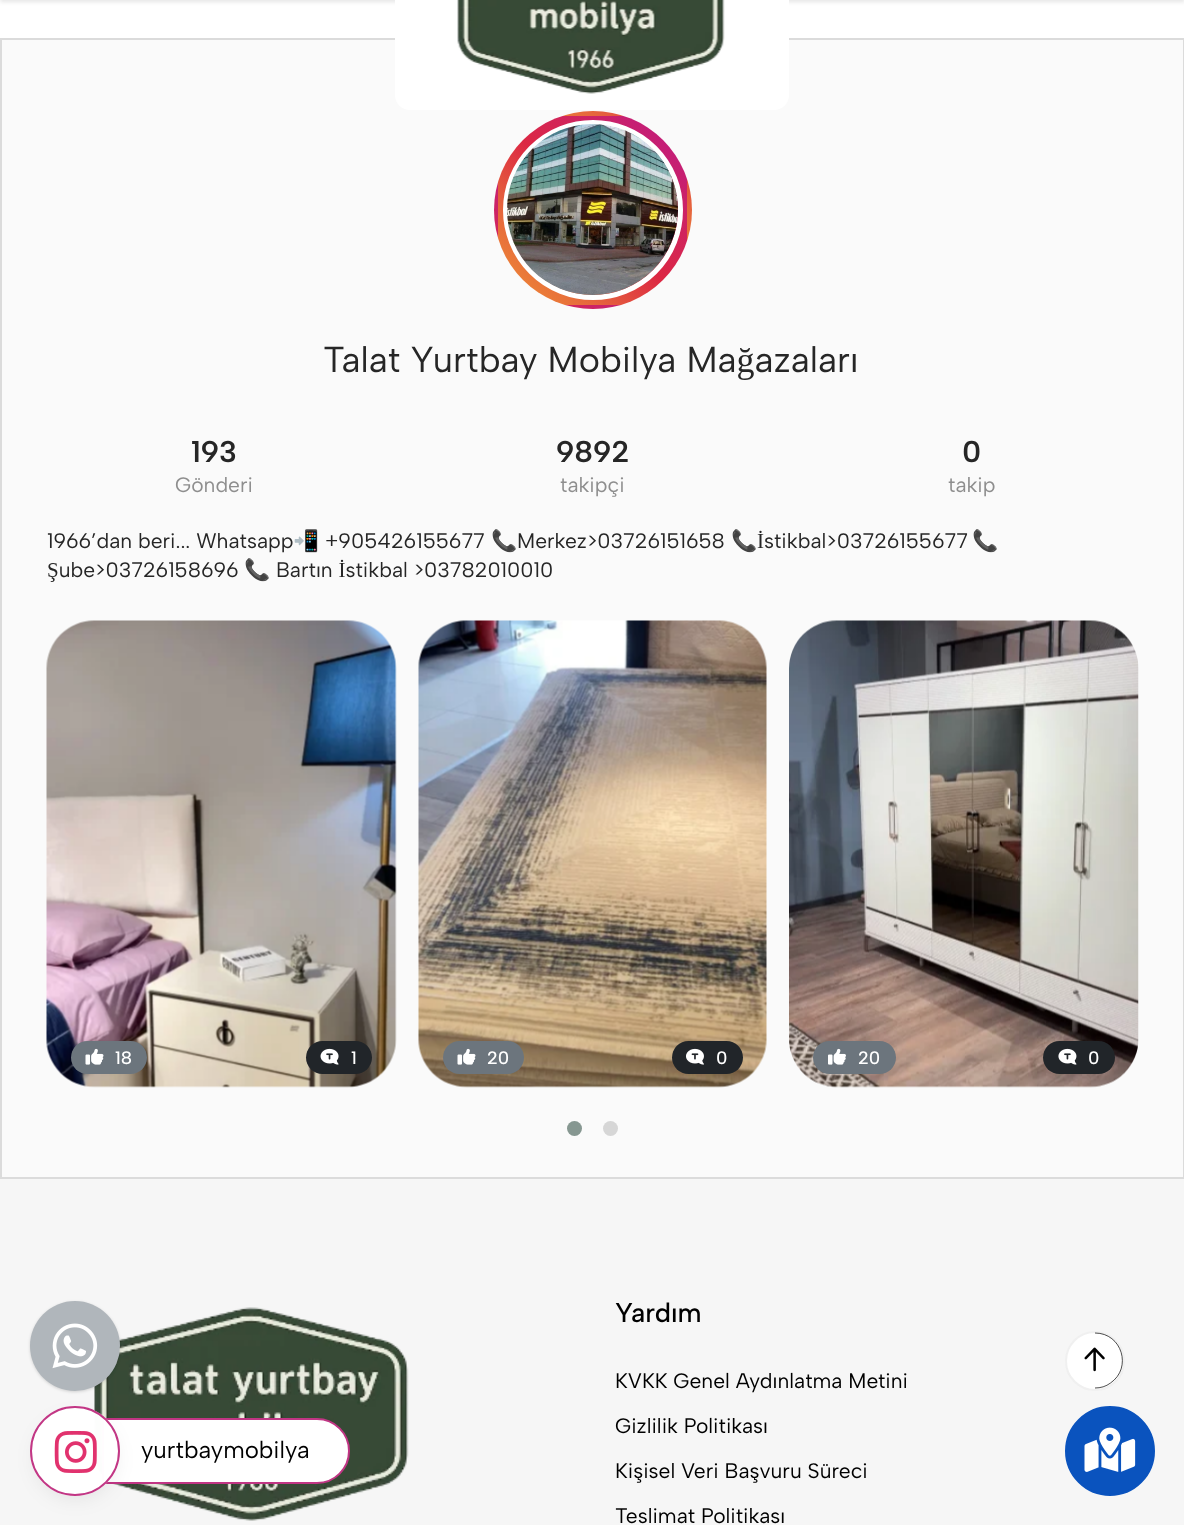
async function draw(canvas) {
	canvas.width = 1184;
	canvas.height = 1525;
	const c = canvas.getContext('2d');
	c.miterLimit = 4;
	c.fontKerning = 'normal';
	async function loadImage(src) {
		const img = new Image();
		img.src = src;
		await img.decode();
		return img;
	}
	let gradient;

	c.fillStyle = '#fff';
	c.fillRect(0, 0, 1184, 1525);
	c.fillStyle = '#0000001a';
	c.filter = 'blur(2px)';
	c.beginPath();
	c.rect(0, -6, 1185, 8);
	c.fill();
	c.filter = 'none';
	c.fillStyle = '#fafafa';
	c.beginPath();
	c.rect(1, 39, 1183, 1139);
	c.fill();
	c.strokeStyle = '#dbdbdb';
	c.lineWidth = 2;
	c.stroke();
	c.fillStyle = '#fff';
	c.beginPath();
	c.moveTo(395, -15);
	c.lineTo(789, -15);
	c.lineTo(789, 95);
	c.bezierCurveTo(789, 103.5, 782.5, 110, 774, 110);
	c.lineTo(410, 110);
	c.bezierCurveTo(401.5, 110, 395, 103.5, 395, 95);
	c.closePath();
	c.fill();
	c.drawImage(await loadImage('img1.png'), 457, 0, 268, 94);
	c.save();
	c.beginPath();
	c.roundRect(494, 111, 198, 198, 99);
	c.clip();
	gradient = c.createLinearGradient(498, 116, 687, -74);
	gradient.addColorStop(0, '#f09433');
	gradient.addColorStop(0.25, '#e6683c');
	gradient.addColorStop(0.5, '#dc2743');
	gradient.addColorStop(0.75, '#cc2366');
	gradient.addColorStop(1, '#bc1888');
	c.fillStyle = gradient;
	c.fillRect(562, 111, 62, 5);
	gradient = c.createLinearGradient(309, 305, 498, 116);
	gradient.addColorStop(0, '#f09433');
	gradient.addColorStop(0.25, '#e6683c');
	gradient.addColorStop(0.5, '#dc2743');
	gradient.addColorStop(0.75, '#cc2366');
	gradient.addColorStop(1, '#bc1888');
	c.fillStyle = gradient;
	c.fillRect(494, 182, 4, 56);
	gradient = c.createLinearGradient(498, 305, 687, 116);
	gradient.addColorStop(0, '#f09433');
	gradient.addColorStop(0.25, '#e6683c');
	gradient.addColorStop(0.5, '#dc2743');
	gradient.addColorStop(0.75, '#cc2366');
	gradient.addColorStop(1, '#bc1888');
	c.fillStyle = gradient;
	c.fillRect(498, 116, 189, 189);
	gradient = c.createLinearGradient(687, 305, 876, 116);
	gradient.addColorStop(0, '#f09433');
	gradient.addColorStop(0.25, '#e6683c');
	gradient.addColorStop(0.5, '#dc2743');
	gradient.addColorStop(0.75, '#cc2366');
	gradient.addColorStop(1, '#bc1888');
	c.fillStyle = gradient;
	c.fillRect(687, 179, 5, 62);
	gradient = c.createLinearGradient(498, 494, 687, 305);
	gradient.addColorStop(0, '#f09433');
	gradient.addColorStop(0.25, '#e6683c');
	gradient.addColorStop(0.5, '#dc2743');
	gradient.addColorStop(0.75, '#cc2366');
	gradient.addColorStop(1, '#bc1888');
	c.fillStyle = gradient;
	c.fillRect(565, 305, 56, 4);
	c.restore();
	c.beginPath();
	c.arc(593, 210, 87.5, 0, 2 * Math.PI);
	c.strokeStyle = '#fff';
	c.lineWidth = 5;
	c.stroke();
	c.drawImage(await loadImage('img2.png'), 507, 124, 171, 171);
	c.font = '36px Albert Sans';
	c.fillStyle = '#262626';
	c.fillText('Talat Yurtbay Mobilya Mağazaları', 323, 372);
	c.font = '600 30px Albert Sans';
	c.fillText('193', 191, 462);
	c.font = '21px Albert Sans';
	c.fillStyle = '#8e8e8e';
	c.fillText('Gönderi', 175, 492);
	c.font = '600 30px Albert Sans';
	c.fillStyle = '#262626';
	c.fillText('9892', 556, 462);
	c.font = '21px Albert Sans';
	c.fillStyle = '#8e8e8e';
	c.fillText('takipçi', 560, 492);
	c.font = '600 30px Albert Sans';
	c.fillStyle = '#262626';
	c.fillText('0', 962, 462);
	c.font = '21px Albert Sans';
	c.fillStyle = '#8e8e8e';
	c.fillText('takip', 948, 492);
	c.fillStyle = '#262626';
	c.fillText('1966’dan beri... Whatsapp', 47, 548);
	c.font = '21px Noto Color Emoji';
	c.fillText('📲', 293, 548);
	c.font = '21px Albert Sans';
	c.fillText('+905426155677', 325, 548);
	c.font = '21px Noto Color Emoji';
	c.fillText('📞', 491, 548);
	c.font = '21px Albert Sans';
	c.fillText('Merkez>03726151658', 517, 548);
	c.font = '21px Noto Color Emoji';
	c.fillText('📞', 731, 548);
	c.font = '21px Albert Sans';
	c.fillText('İstikbal>03726155677', 757, 548);
	c.font = '21px Noto Color Emoji';
	c.fillText('📞', 972, 548);
	c.font = '21px Albert Sans';
	c.fillText('Şube>03726158696', 47, 577);
	c.font = '21px Noto Color Emoji';
	c.fillText('📞', 244, 577);
	c.font = '21px Albert Sans';
	c.fillText('Bartın İstikbal >03782010010', 276, 577);
	c.drawImage(await loadImage('img3.png'), 46, 620, 351, 468);
	c.fillStyle = '#6c757d';
	c.beginPath();
	c.roundRect(71, 1041, 76, 33, 16.5);
	c.fill();
	c.drawImage(await loadImage('img4.png'), 85, 1048, 19, 17);
	c.font = '500 18px Albert Sans';
	c.fillStyle = '#fff';
	c.fillText('18', 115, 1064);
	c.fillStyle = '#212529';
	c.beginPath();
	c.roundRect(306, 1041, 66, 33, 16.5);
	c.fill();
	c.drawImage(await loadImage('img5.png'), 320, 1048, 19, 17);
	c.fillStyle = '#fff';
	c.fillText('1', 351, 1064);
	c.drawImage(await loadImage('img6.png'), 418, 620, 349, 468);
	c.fillStyle = '#6c757d';
	c.beginPath();
	c.roundRect(443, 1041, 81, 33, 16.5);
	c.fill();
	c.drawImage(await loadImage('img4.png'), 457, 1048, 19, 17);
	c.fillStyle = '#fff';
	c.fillText('20', 487, 1064);
	c.fillStyle = '#212529';
	c.beginPath();
	c.roundRect(672, 1041, 71, 33, 16.5);
	c.fill();
	c.drawImage(await loadImage('img7.png'), 686, 1048, 18, 17);
	c.fillStyle = '#fff';
	c.fillText('0', 716, 1064);
	c.drawImage(await loadImage('img8.png'), 789, 620, 350, 468);
	c.fillStyle = '#6c757d';
	c.beginPath();
	c.roundRect(813, 1041, 83, 33, 16.5);
	c.fill();
	c.drawImage(await loadImage('img9.png'), 828, 1048, 18, 17);
	c.fillStyle = '#fff';
	c.fillText('20', 858, 1064);
	c.fillStyle = '#212529';
	c.beginPath();
	c.roundRect(1043, 1041, 72, 33, 16.5);
	c.fill();
	c.drawImage(await loadImage('img10.png'), 1058, 1048, 19, 17);
	c.fillStyle = '#fff';
	c.fillText('0', 1088, 1064);
	c.fillStyle = '#869791';
	c.beginPath();
	c.arc(574.5, 1128.5, 7.5, 0, 2 * Math.PI);
	c.fill();
	c.fillStyle = '#d6d6d6';
	c.beginPath();
	c.arc(610.5, 1128.5, 7.5, 0, 2 * Math.PI);
	c.fill();
	c.fillStyle = '#f6f6f6';
	c.fillRect(0, 1179, 1184, 346);
	c.drawImage(await loadImage('img11.png'), 94, 1307, 315, 214);
	c.font = '500 27px Albert Sans';
	c.fillStyle = '#000';
	c.fillText('Yardım', 615, 1322);
	c.font = '21px Albert Sans';
	for (const [text, x, y] of [
		['KVKK Genel Aydınlatma Metini', 615, 1388],
		['Gizlilik Politikası', 615, 1433],
		['Kişisel Veri Başvuru Süreci', 615, 1478],
		['Teslimat Politikası', 615, 1523],
	]) {
		c.fillText(text, x, y);
	}
	c.fillStyle = '#00000026';
	c.filter = 'blur(1.5px)';
	c.beginPath();
	c.roundRect(30, 1302, 90, 90, 45);
	c.fill();
	c.filter = 'none';
	c.fillStyle = '#b0b6bb';
	c.beginPath();
	c.arc(75, 1346, 45, 0, 2 * Math.PI);
	c.fill();
	c.drawImage(await loadImage('img12.png'), 52, 1323, 46, 46);
	c.fillStyle = '#fff';
	c.beginPath();
	c.arc(1095, 1361, 30, 0, 2 * Math.PI);
	c.fill();
	c.beginPath();
	c.arc(1095, 1361, 29, 0, 2 * Math.PI);
	c.strokeStyle = '#8686861f';
	c.lineWidth = 2;
	c.stroke();
	c.beginPath();
	c.moveTo(1095, 1333);
	c.bezierCurveTo(1122, 1333, 1132.5, 1368, 1110.5, 1383);
	c.bezierCurveTo(1106, 1386.5, 1100.5, 1388, 1095, 1388);
	c.strokeStyle = '#000';
	c.lineWidth = 0.7;
	c.stroke();
	c.drawImage(await loadImage('img13.png'), 1084, 1347, 21, 25);
	c.beginPath();
	c.roundRect(103, 1419, 246, 64, [0, 32, 32, 0]);
	c.fill();
	c.strokeStyle = '#c13584';
	c.lineWidth = 2;
	c.stroke();
	c.save();
	c.beginPath();
	c.moveTo(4, 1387);
	c.lineTo(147, 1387);
	c.lineTo(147, 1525);
	c.lineTo(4, 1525);
	c.closePath();
	c.moveTo(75, 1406);
	c.bezierCurveTo(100, 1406, 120, 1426, 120, 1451);
	c.bezierCurveTo(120, 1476, 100, 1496, 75, 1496);
	c.bezierCurveTo(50, 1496, 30, 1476, 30, 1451);
	c.bezierCurveTo(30, 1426, 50, 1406, 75, 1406);
	c.closePath();
	c.clip('evenodd');
	c.fillStyle = '#0000001a';
	c.filter = 'blur(11px)';
	c.beginPath();
	c.roundRect(38, 1421, 75, 75, 37.5);
	c.fill();
	c.filter = 'none';
	c.restore();
	c.fillStyle = '#fffffffc';
	c.beginPath();
	c.arc(75, 1451, 45, 0, 2 * Math.PI);
	c.fill();
	c.beginPath();
	c.arc(75, 1451, 44, 0, 2 * Math.PI);
	c.strokeStyle = '#c13584fc';
	c.stroke();
	c.drawImage(await loadImage('img14.png'), 54, 1431, 43, 42);
	c.font = '24px Albert Sans';
	c.fillStyle = '#000';
	c.fillText('yurtbaymobilya', 141, 1458);
	c.fillStyle = '#0a53be';
	c.beginPath();
	c.arc(1110, 1451, 44, 0, 2 * Math.PI);
	c.fill();
	c.strokeStyle = '#0a53be';
	c.stroke();
	c.drawImage(await loadImage('img15.png'), 1084, 1427, 52, 45);
}

draw(document.querySelector('canvas'));
